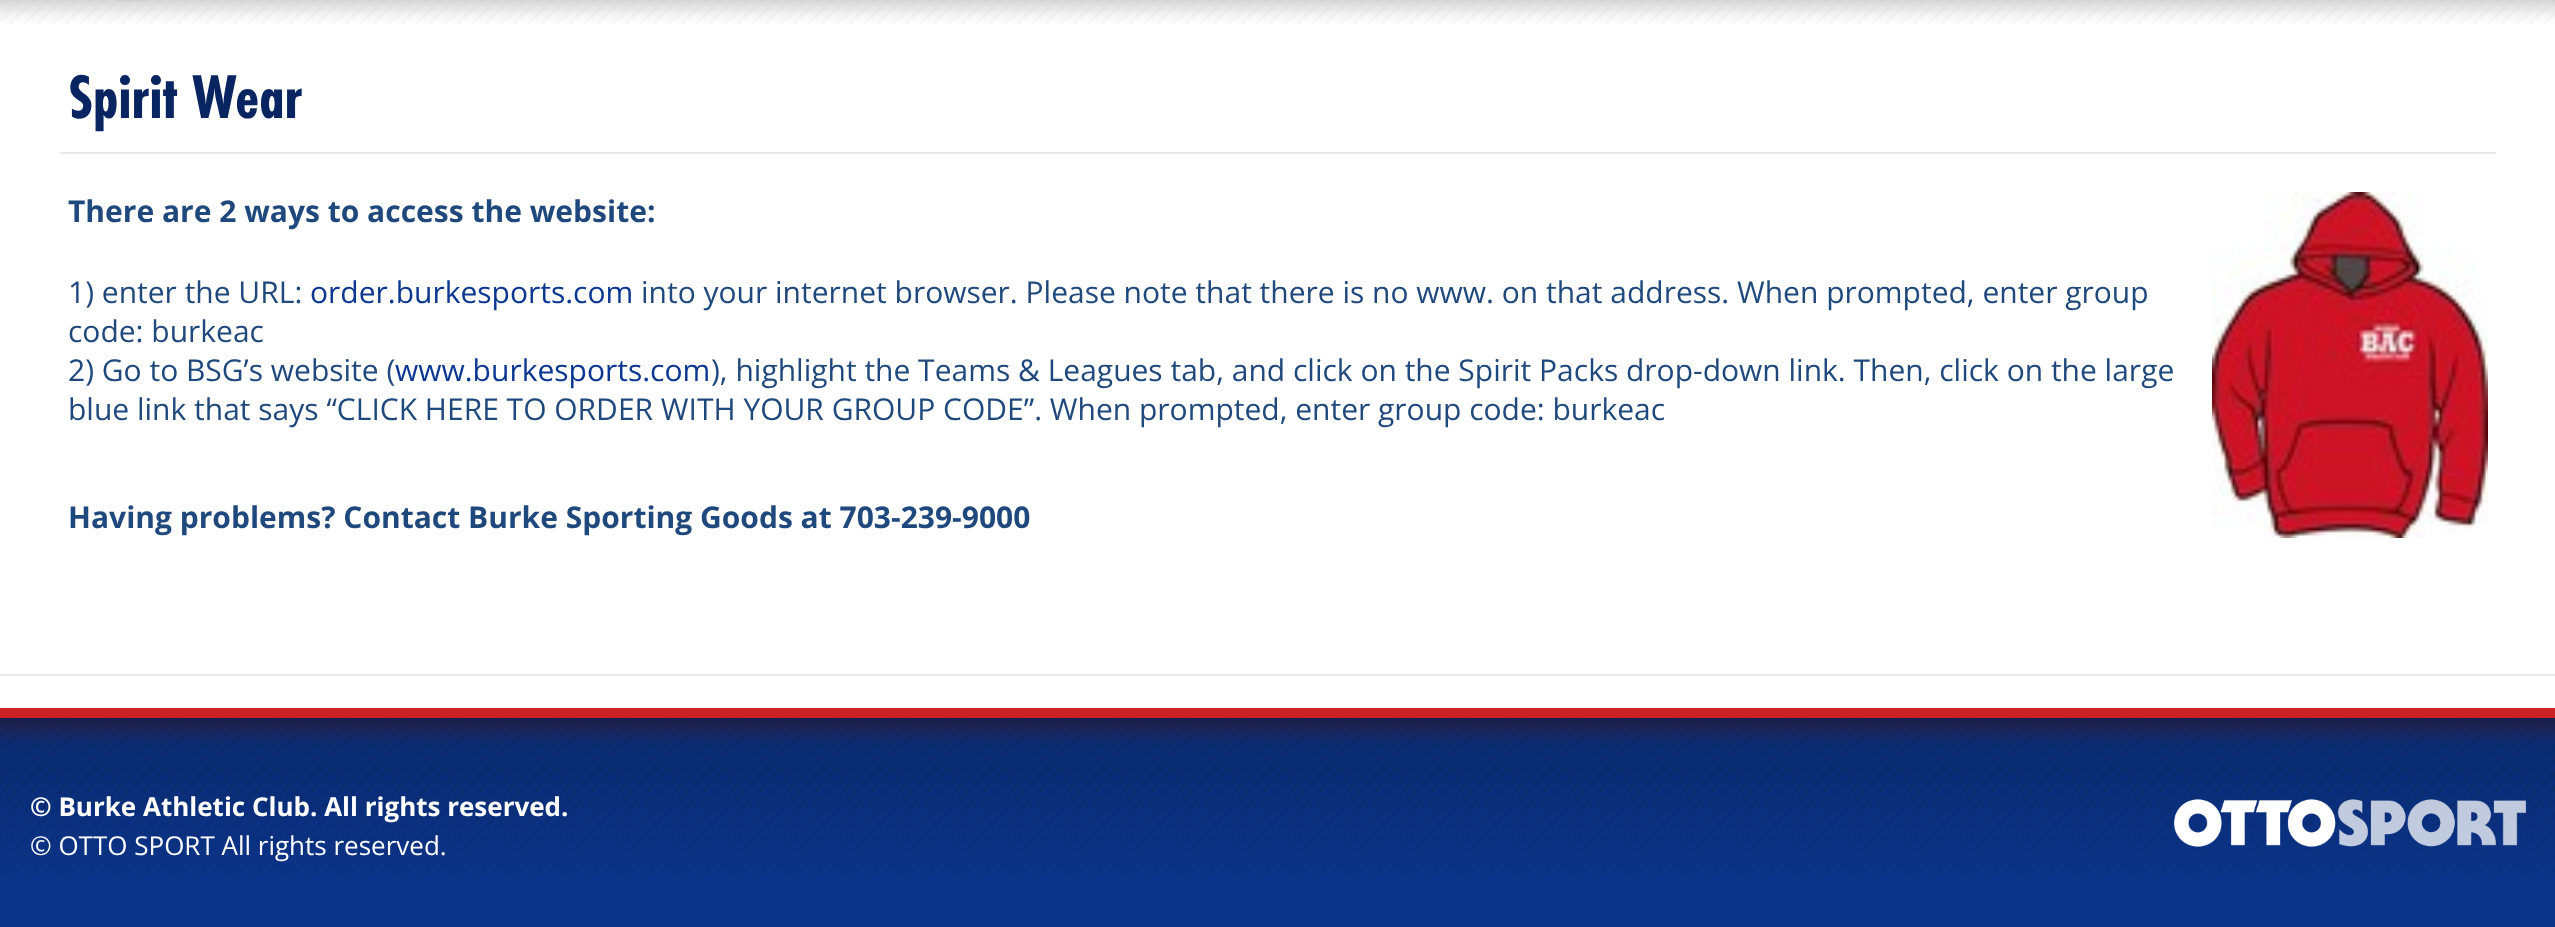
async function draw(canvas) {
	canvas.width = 2555;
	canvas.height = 927;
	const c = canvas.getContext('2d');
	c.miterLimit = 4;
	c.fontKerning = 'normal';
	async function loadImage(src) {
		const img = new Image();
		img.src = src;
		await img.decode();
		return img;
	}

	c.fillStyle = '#0b348a';
	c.fillRect(0, 0, 2555, 927);
	c.drawImage(await loadImage('img2.png'), 0, 0, 2555, 24);
	c.drawImage(await loadImage('img1.png'), 118, 0, 27, 1);
	c.fillStyle = '#fff';
	c.fillRect(0, 24, 2555, 650);
	c.font = 'bold 64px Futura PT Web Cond';
	c.fillStyle = '#082562';
	c.fillText('Spirit Wear', 68, 118);
	c.fillStyle = '#e9e9e9';
	c.fillRect(60, 152, 2436, 2);
	c.font = 'bold 30px Open Sans';
	c.fillStyle = '#1f497d';
	c.fillText('There are 2 ways to access the website:', 68, 222);
	c.drawImage(await loadImage('img3.png'), 2212, 192, 276, 346);
	c.font = '30px Open Sans';
	c.fillText('1) enter the URL:', 68, 303);
	c.fillStyle = '#0c3791';
	c.fillText('order.burkesports.com', 310, 303);
	c.fillStyle = '#1f497d';
	for (const [text, x, y] of [
		['into your internet browser. Please note that there is no www. on that address. When prompted, enter group', 641, 303],
		['code: burkeac', 68, 342],
		['2) Go to BSG’s website (', 68, 381],
	]) {
		c.fillText(text, x, y);
	}
	c.fillStyle = '#0c3791';
	c.fillText('www.burkesports.com', 395, 381);
	c.fillStyle = '#1f497d';
	c.fillText('), highlight the Teams & Leagues tab, and click on the Spirit Packs drop-down link. Then, click on the large', 711, 381);
	c.fillText('blue link that says “CLICK HERE TO ORDER WITH YOUR GROUP CODE”. When prompted, enter group code: burkeac', 68, 420);
	c.font = 'bold 30px Open Sans';
	c.fillText('Having problems? Contact Burke Sporting Goods at 703-239-9000', 68, 528);
	c.fillStyle = '#fff';
	c.fillRect(0, 676, 2555, 32);
	c.fillStyle = '#e7e7e7';
	c.fillRect(0, 674, 2555, 2);
	c.drawImage(await loadImage('img4.png'), 0, 718, 2555, 160);
	c.fillStyle = '#cb2323';
	c.fillRect(0, 708, 2555, 10);
	c.font = 'bold 26px Open Sans';
	c.fillStyle = '#fff';
	c.fillText('© Burke Athletic Club. All rights reserved.', 30, 816);
	c.font = '26px Open Sans';
	c.fillText('© OTTO SPORT All rights reserved.', 30, 855);
	c.drawImage(await loadImage('img5.png'), 2174, 799, 352, 48);
}

draw(document.querySelector('canvas'));
